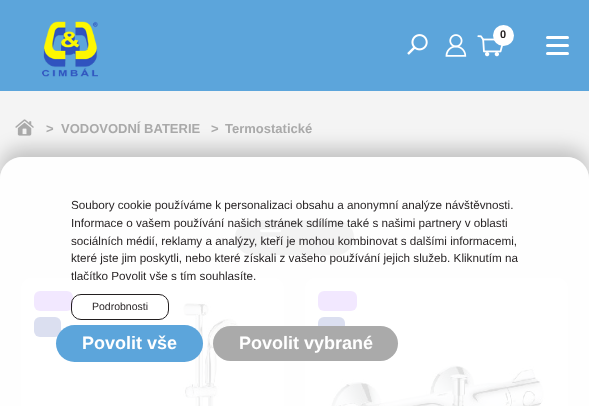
async function draw(canvas) {
	canvas.width = 589;
	canvas.height = 406;
	const c = canvas.getContext('2d');
	c.miterLimit = 4;
	c.fontKerning = 'normal';
	async function loadImage(src) {
		const img = new Image();
		img.src = src;
		await img.decode();
		return img;
	}

	c.fillStyle = '#f4f4f4';
	c.fillRect(0, 0, 589, 406);
	c.fillStyle = '#5ca5db';
	c.fillRect(0, 0, 589, 91);
	c.drawImage(await loadImage('img1.png'), 42, 21, 56, 56);
	c.drawImage(await loadImage('img2.png'), 407, 34, 21, 21);
	c.drawImage(await loadImage('img3.png'), 445, 34, 22, 23);
	c.drawImage(await loadImage('img4.png'), 477, 35, 27, 22);
	c.fillStyle = '#fff';
	c.beginPath();
	c.arc(503.5, 35.5, 10.5, 0, 2 * Math.PI);
	c.fill();
	c.font = 'bold 11px Liberation Sans';
	c.fillStyle = '#231f20';
	c.fillText('0', 500, 38);
	c.fillStyle = '#fff';
	c.beginPath();
	c.roundRect(546, 36, 23, 3, 1.5);
	c.fill();
	c.beginPath();
	c.roundRect(546, 44, 23, 3, 1.5);
	c.fill();
	c.beginPath();
	c.roundRect(546, 52, 23, 3, 1.5);
	c.fill();
	c.drawImage(await loadImage('img5.png'), 15, 119, 19, 17);
	c.font = 'bold 13px Liberation Sans';
	c.fillStyle = '#aaa';
	for (const [text, x, y] of [
		['>', 46, 133],
		['VODOVODNÍ BATERIE', 61, 133],
		['>', 211, 133],
		['Termostatické', 225, 133],
	]) {
		c.fillText(text, x, y);
	}
	c.beginPath();
	c.roundRect(235, 220, 119, 35, 17.5);
	c.fill();
	c.drawImage(await loadImage('img6.png'), 260, 229, 21, 18);
	c.fillStyle = '#fff';
	c.beginPath();
	c.roundRect(21, 278, 263, 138, 10);
	c.fill();
	c.fillStyle = '#a65fff';
	c.beginPath();
	c.roundRect(34, 291, 39, 20, 6);
	c.fill();
	c.fillStyle = '#001c96';
	c.beginPath();
	c.roundRect(34, 317, 27, 20, 6);
	c.fill();
	c.drawImage(await loadImage('img7.png'), 180, 301, 59, 105);
	c.fillStyle = '#fff';
	c.beginPath();
	c.roundRect(305, 278, 263, 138, 10);
	c.fill();
	c.fillStyle = '#a65fff';
	c.beginPath();
	c.roundRect(318, 291, 39, 20, 6);
	c.fill();
	c.fillStyle = '#001c96';
	c.beginPath();
	c.roundRect(318, 317, 27, 20, 6);
	c.fill();
	c.drawImage(await loadImage('img8.png'), 329, 364, 216, 42);
	c.save();
	c.beginPath();
	c.moveTo(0, 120);
	c.lineTo(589, 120);
	c.lineTo(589, 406);
	c.lineTo(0, 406);
	c.closePath();
	c.moveTo(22, 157);
	c.lineTo(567, 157);
	c.bezierCurveTo(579, 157, 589, 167, 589, 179);
	c.lineTo(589, 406);
	c.lineTo(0, 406);
	c.lineTo(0, 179);
	c.bezierCurveTo(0, 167, 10, 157, 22, 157);
	c.closePath();
	c.clip('evenodd');
	c.fillStyle = '#00000033';
	c.filter = 'blur(9px)';
	c.beginPath();
	c.roundRect(0, 148, 589, 249, 22);
	c.fill();
	c.filter = 'none';
	c.restore();
	c.fillStyle = '#ffffffdb';
	c.beginPath();
	c.roundRect(0, 157, 589, 249, [22, 22, 0, 0]);
	c.fill();
	c.font = '11.7px Liberation Sans';
	c.fillStyle = '#231f20';
	for (const [text, x, y] of [
		['Soubory cookie používáme k personalizaci obsahu a anonymní analýze návštěvnosti.', 71, 209],
		['Informace o vašem používání našich stránek sdílíme také s našimi partnery v oblasti', 71, 227],
		['sociálních médií, reklamy a analýzy, kteří je mohou kombinovat s dalšími informacemi,', 71, 245],
		['které jste jim poskytli, nebo které získali z vašeho používání jejich služeb. Kliknutím na', 71, 262],
		['tlačítko Povolit vše s tím souhlasíte.', 71, 280],
	]) {
		c.fillText(text, x, y);
	}
	c.beginPath();
	c.roundRect(71.5, 294.5, 97, 25, 9.5);
	c.strokeStyle = '#231f20';
	c.stroke();
	c.font = '10.5px Liberation Sans';
	c.fillText('Podrobnosti', 92, 310);
	c.fillStyle = '#5ca5db';
	c.beginPath();
	c.roundRect(56, 325, 147, 37, 18.5);
	c.fill();
	c.font = 'bold 18px Liberation Sans';
	c.fillStyle = '#fff';
	c.fillText('Povolit vše', 82, 349);
	c.fillStyle = '#aaa';
	c.beginPath();
	c.roundRect(213, 326, 185, 35, 17.5);
	c.fill();
	c.fillStyle = '#fff';
	c.fillText('Povolit vybrané', 239, 349);
}

draw(document.querySelector('canvas'));
